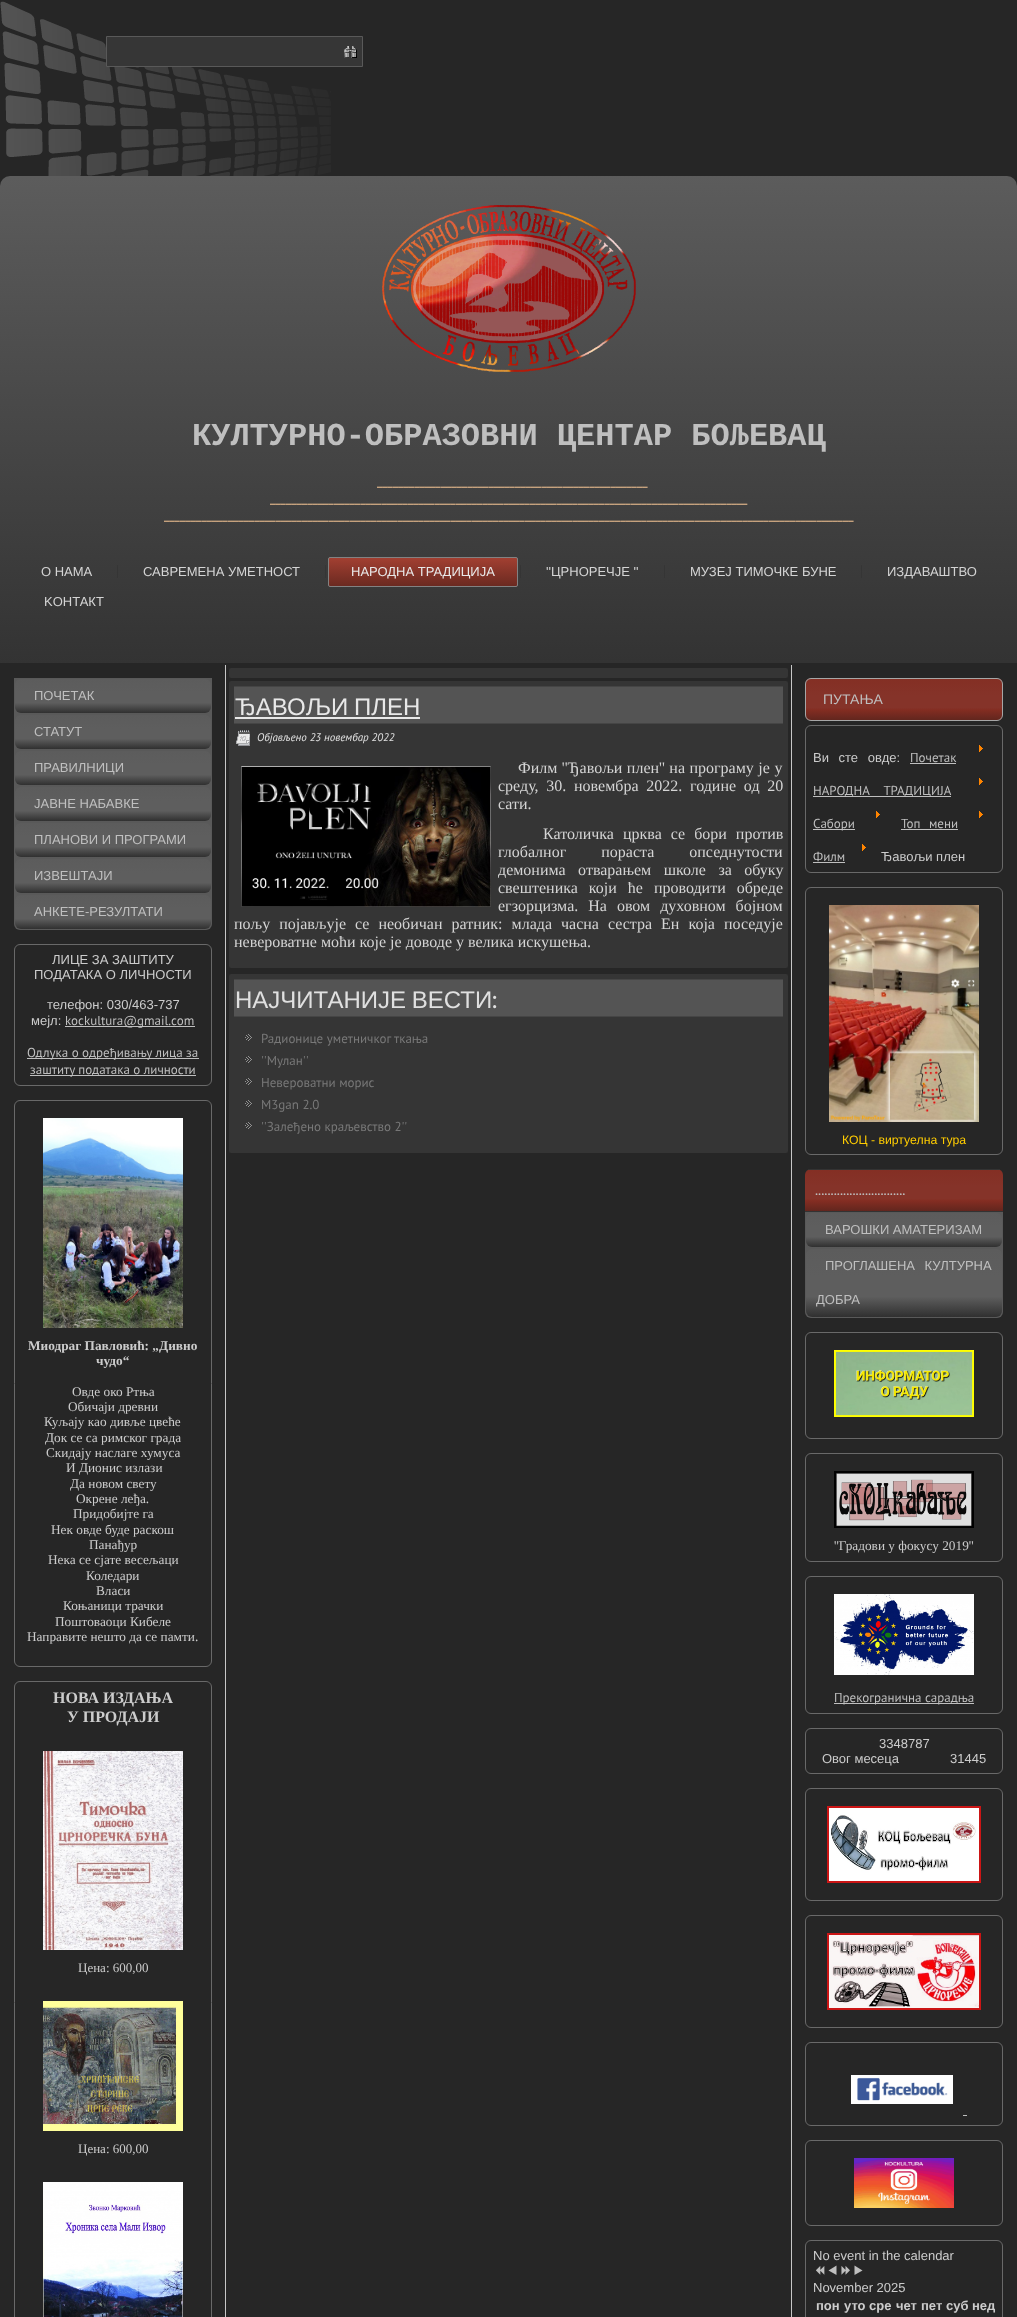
async function draw(canvas) {
	canvas.width = 1017;
	canvas.height = 2317;
	const c = canvas.getContext('2d');
	c.miterLimit = 4;
	c.fontKerning = 'normal';
	async function loadImage(src) {
		const img = new Image();
		img.src = src;
		await img.decode();
		return img;
	}
	let gradient;

	c.fillStyle = '#262626';
	c.fillRect(0, 0, 1017, 2317);
	c.drawImage(await loadImage('img1.png'), 0, 1, 331, 175);
	c.fillStyle = '#363636';
	c.beginPath();
	c.rect(106.5, 36.5, 256, 30);
	c.fill();
	c.strokeStyle = '#595959';
	c.stroke();
	c.drawImage(await loadImage('img2.png'), 343, 46, 14, 12);
	gradient = c.createLinearGradient(508, 176, 509, 663);
	gradient.addColorStop(0, '#5c5c5c');
	gradient.addColorStop(1, '#333');
	c.fillStyle = gradient;
	c.beginPath();
	c.roundRect(0, 176, 1017, 487, [10, 10, 0, 0]);
	c.fill();
	c.drawImage(await loadImage('img3.png'), 382, 205, 254, 167);
	c.font = 'bold 32px Liberation Mono';
	c.fillStyle = '#bfbfbf';
	c.fillText('КУЛТУРНО-ОБРАЗОВНИ ЦЕНТАР БОЉЕВАЦ', 192, 445);
	c.font = '13px PT Sans';
	c.fillStyle = '#fc9';
	for (const [text, x, y] of [
		['___________________________________________________', 377, 485],
		['__________________________________________________________________________________________', 270, 502],
		['__________________________________________________________________________________________________________________________________', 164, 519],
	]) {
		c.fillText(text, x, y);
	}
	c.font = '13px Liberation Sans';
	c.fillStyle = '#d4d4d4';
	c.fillText('О НАМА', 41, 576);
	c.drawImage(await loadImage('img4.png'), 117, 565, 1, 13);
	c.fillText('САВРЕМЕНА УМЕТНОСТ', 143, 576);
	c.drawImage(await loadImage('img4.png'), 325, 565, 1, 13);
	gradient = c.createLinearGradient(423, 557, 423, 587);
	gradient.addColorStop(0, '#a44032');
	gradient.addColorStop(1, '#692920');
	c.fillStyle = gradient;
	c.beginPath();
	c.roundRect(328.5, 557.5, 189, 29, 1.5);
	c.fill();
	c.strokeStyle = '#828282';
	c.stroke();
	c.fillStyle = '#e8e8e8';
	c.fillText('НАРОДНА ТРАДИЦИЈА', 351, 576);
	c.drawImage(await loadImage('img4.png'), 520, 565, 1, 13);
	c.fillStyle = '#d4d4d4';
	c.fillText('\'\'ЦРНОРЕЧЈЕ \'\'', 546, 576);
	c.drawImage(await loadImage('img4.png'), 664, 565, 1, 13);
	c.fillText('МУЗЕЈ ТИМОЧКЕ БУНЕ', 690, 576);
	c.drawImage(await loadImage('img4.png'), 861, 565, 1, 13);
	c.fillText('ИЗДАВАШТВО', 887, 576);
	c.fillText('KОНТАКТ', 44, 606);
	c.fillStyle = '#c7c7c7';
	c.fillRect(225, 665, 1, 1652);
	c.fillStyle = '#595959';
	c.beginPath();
	c.roundRect(14, 678, 198, 252, [0, 0, 6, 6]);
	c.fill();
	gradient = c.createLinearGradient(113, 679, 113, 713);
	gradient.addColorStop(0, '#5c5c5c');
	gradient.addColorStop(0.4, '#5e5e5e');
	gradient.addColorStop(0.7, '#5e5e5e');
	gradient.addColorStop(1, '#303030');
	c.fillStyle = gradient;
	c.beginPath();
	c.roundRect(15, 679, 196, 34, 6);
	c.fill();
	c.fillStyle = '#bfbfbf';
	c.fillText('ПОЧЕТАК', 34, 700);
	gradient = c.createLinearGradient(113, 715, 113, 749);
	gradient.addColorStop(0, '#5c5c5c');
	gradient.addColorStop(0.4, '#5e5e5e');
	gradient.addColorStop(0.7, '#5e5e5e');
	gradient.addColorStop(1, '#303030');
	c.fillStyle = gradient;
	c.beginPath();
	c.roundRect(15, 715, 196, 34, 6);
	c.fill();
	c.fillStyle = '#bfbfbf';
	c.fillText('СТАТУТ', 34, 736);
	gradient = c.createLinearGradient(113, 751, 113, 785);
	gradient.addColorStop(0, '#5c5c5c');
	gradient.addColorStop(0.4, '#5e5e5e');
	gradient.addColorStop(0.7, '#5e5e5e');
	gradient.addColorStop(1, '#303030');
	c.fillStyle = gradient;
	c.beginPath();
	c.roundRect(15, 751, 196, 34, 6);
	c.fill();
	c.fillStyle = '#bfbfbf';
	c.fillText('ПРАВИЛНИЦИ', 34, 772);
	gradient = c.createLinearGradient(113, 787, 113, 821);
	gradient.addColorStop(0, '#5c5c5c');
	gradient.addColorStop(0.4, '#5e5e5e');
	gradient.addColorStop(0.7, '#5e5e5e');
	gradient.addColorStop(1, '#303030');
	c.fillStyle = gradient;
	c.beginPath();
	c.roundRect(15, 787, 196, 34, 6);
	c.fill();
	c.fillStyle = '#bfbfbf';
	c.fillText('ЈАВНЕ НАБАВКЕ', 34, 808);
	gradient = c.createLinearGradient(113, 823, 113, 857);
	gradient.addColorStop(0, '#5c5c5c');
	gradient.addColorStop(0.4, '#5e5e5e');
	gradient.addColorStop(0.7, '#5e5e5e');
	gradient.addColorStop(1, '#303030');
	c.fillStyle = gradient;
	c.beginPath();
	c.roundRect(15, 823, 196, 34, 6);
	c.fill();
	c.fillStyle = '#bfbfbf';
	c.fillText('ПЛАНОВИ И ПРОГРАМИ', 34, 844);
	gradient = c.createLinearGradient(113, 859, 113, 893);
	gradient.addColorStop(0, '#5c5c5c');
	gradient.addColorStop(0.4, '#5e5e5e');
	gradient.addColorStop(0.7, '#5e5e5e');
	gradient.addColorStop(1, '#303030');
	c.fillStyle = gradient;
	c.beginPath();
	c.roundRect(15, 859, 196, 34, 6);
	c.fill();
	c.fillStyle = '#bfbfbf';
	c.fillText('ИЗВЕШТАЈИ', 34, 880);
	gradient = c.createLinearGradient(113, 895, 113, 929);
	gradient.addColorStop(0, '#5c5c5c');
	gradient.addColorStop(0.4, '#5e5e5e');
	gradient.addColorStop(0.7, '#5e5e5e');
	gradient.addColorStop(1, '#303030');
	c.fillStyle = gradient;
	c.beginPath();
	c.roundRect(15, 895, 196, 34, 6);
	c.fill();
	c.fillStyle = '#bfbfbf';
	c.fillText('АНКЕТЕ-РЕЗУЛТАТИ', 34, 916);
	c.beginPath();
	c.roundRect(14.5, 944.5, 197, 141, 5.5);
	c.strokeStyle = '#696969';
	c.stroke();
	c.fillStyle = '#ccc';
	for (const [text, x, y] of [
		['ЛИЦЕ ЗА ЗАШТИТУ', 52, 964],
		['ПОДАТАКА О ЛИЧНОСТИ', 34, 979],
		['телефон: 030/463-737', 47, 1009],
		['мејл:', 31, 1025],
	]) {
		c.fillText(text, x, y);
	}
	c.fillStyle = '#bfbfbf';
	c.fillRect(65, 1026, 130, 1);
	c.font = '13px PT Sans';
	c.fillText('kockultura@gmail.com', 65, 1025);
	c.fillRect(27, 1058, 172, 1);
	c.fillText('Одлука о одређивању лица за', 27, 1057);
	c.fillRect(30, 1075, 166, 1);
	c.fillText('заштиту података о личности', 30, 1074);
	c.beginPath();
	c.roundRect(14.5, 1100.5, 197, 566, 5.5);
	c.stroke();
	c.drawImage(await loadImage('img5.png'), 43, 1118, 140, 210);
	c.font = 'bold 13.3px Liberation Serif';
	c.fillStyle = '#ccc';
	c.fillText('Миодраг Павловић: „Дивно', 28, 1350);
	c.fillText('чудо“', 96, 1365);
	c.font = '13.3px Liberation Serif';
	for (const [text, x, y] of [
		['Овде око Ртња', 72, 1396],
		['Обичаји древни', 68, 1411],
		['Куљају као дивље цвеће', 44, 1426],
		['Док се са римског града', 45, 1442],
		['Скидају наслаге хумуса', 46, 1457],
		['И Дионис излази', 66, 1472],
		['Да новом свету', 70, 1488],
		['Окрене леђа.', 76, 1503],
		['Придобијте га', 73, 1518],
		['Нек овде буде раскош', 51, 1534],
		['Панађур', 89, 1549],
		['Нека се сјате весељаци', 48, 1564],
		['Коледари', 86, 1580],
		['Власи', 96, 1595],
		['Коњаници трачки', 63, 1610],
		['Поштоваоци Кибеле', 55, 1626],
		['Направите нешто да се памти.', 27, 1641],
	]) {
		c.fillText(text, x, y);
	}
	c.beginPath();
	c.roundRect(14.5, 1681.5, 197, 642, 5.5);
	c.stroke();
	c.font = 'bold 16px Liberation Serif';
	c.fillText('НОВА ИЗДАЊА', 53, 1703);
	c.fillText('У ПРОДАЈИ', 67, 1722);
	c.drawImage(await loadImage('img6.png'), 43, 1751, 140, 199);
	c.font = '13px Liberation Serif';
	c.fillText('Цена: 600,00', 78, 1972);
	c.drawImage(await loadImage('img7.png'), 43, 2001, 140, 130);
	c.fillText('Цена: 600,00', 78, 2153);
	c.drawImage(await loadImage('img8.png'), 43, 2182, 140, 135);
	c.fillStyle = '#353535';
	c.beginPath();
	c.roundRect(229, 668, 559, 10, 2);
	c.fill();
	c.beginPath();
	c.roundRect(229, 681, 559, 287, 2);
	c.fill();
	for (const [x, y, w, h, color] of [
		[234, 687, 549, 36, '#545454'],
		[234, 686, 549, 1, '#454545'],
		[234, 723, 549, 1, '#454545'],
	]) {
		c.fillStyle = color;
		c.fillRect(x, y, w, h);
	}
	c.wordSpacing = '-1px';
	c.font = '24px Liberation Sans';
	c.fillStyle = '#e8e8e8';
	c.fillText('ЂАВОЉИ ПЛЕН', 235, 715);
	c.fillRect(235, 717, 185, 2);
	c.drawImage(await loadImage('img9.png'), 236, 730, 14, 16);
	c.wordSpacing = '0px';
	c.font = 'italic 11px PT Sans';
	c.fillStyle = '#e0e0e0';
	c.fillText('Објављено 23 новембар 2022', 257, 741);
	c.drawImage(await loadImage('img10.png'), 241, 766, 250, 141);
	c.wordSpacing = '0.5px';
	c.font = '16px Liberation Serif';
	c.fillStyle = '#d4d4d4';
	c.fillText('Филм \'\'Ђавољи плен\'\' на програму је у', 518, 773);
	c.wordSpacing = '3.75px';
	c.fillText('среду, 30. новембра 2022. године од 20', 498, 791);
	c.wordSpacing = '0px';
	c.fillText('сати.', 498, 809);
	c.wordSpacing = '5px';
	c.fillText('Католичка црква се бори против', 543, 839);
	c.wordSpacing = '31px';
	c.fillText('глобалног пораста опседнутости', 498, 857);
	c.wordSpacing = '8.5px';
	c.fillText('демонима отварањем школе за обуку', 498, 875);
	c.wordSpacing = '7px';
	c.fillText('свештеника који ће проводити обреде', 498, 893);
	c.wordSpacing = '6px';
	c.fillText('егзорцизма. На овом духовном бојном', 498, 911);
	c.wordSpacing = '5px';
	c.fillText('пољу појављује се необичан ратник: млада часна сестра Ен која поседује', 234, 929);
	c.wordSpacing = '0px';
	c.fillText('невероватне моћи које је доводе у велика искушења.', 234, 947);
	c.fillStyle = '#353535';
	c.beginPath();
	c.roundRect(229, 974, 559, 179, 2);
	c.fill();
	for (const [x, y, w, h, color] of [
		[234, 980, 549, 36, '#545454'],
		[234, 979, 549, 1, '#454545'],
		[234, 1016, 549, 1, '#454545'],
	]) {
		c.fillStyle = color;
		c.fillRect(x, y, w, h);
	}
	c.wordSpacing = '-1px';
	c.font = '24px Liberation Sans';
	c.fillStyle = '#e0e0e0';
	c.fillText('НАЈЧИТАНИЈЕ ВЕСТИ', 235, 1008);
	c.wordSpacing = '0px';
	c.font = '24px Arvo';
	c.fillText(':', 492, 1008);
	c.drawImage(await loadImage('img11.png'), 245, 1034, 7, 7);
	c.font = '13px PT Sans';
	c.fillStyle = '#787878';
	c.fillText('Радионице уметничког ткања', 261, 1043);
	c.drawImage(await loadImage('img11.png'), 245, 1056, 7, 7);
	c.fillText('\'\'Мулан\'\'', 261, 1065);
	c.drawImage(await loadImage('img11.png'), 245, 1078, 7, 7);
	c.fillText('Невероватни морис', 261, 1087);
	c.drawImage(await loadImage('img11.png'), 245, 1100, 7, 7);
	c.fillText('M3gan 2.0', 261, 1109);
	c.drawImage(await loadImage('img11.png'), 245, 1122, 7, 7);
	c.fillText('\'\'Залеђено краљевство 2\'\'', 261, 1131);
	c.fillStyle = '#c7c7c7';
	c.fillRect(791, 665, 1, 1652);
	c.save();
	c.beginPath();
	c.roundRect(805, 678, 198, 43, 6);
	c.clip();
	gradient = c.createLinearGradient(904, 679, 904, 720);
	gradient.addColorStop(0, '#842f24');
	gradient.addColorStop(0.4, '#853329');
	gradient.addColorStop(0.7, '#853329');
	gradient.addColorStop(0.75, '#842d22');
	gradient.addColorStop(1, '#62261e');
	c.fillStyle = gradient;
	c.fillRect(806, 679, 196, 41);
	c.restore();
	c.beginPath();
	c.roundRect(805.5, 678.5, 197, 42, 5.5);
	c.strokeStyle = '#a6a6a6';
	c.stroke();
	c.font = '14px Liberation Sans';
	c.fillStyle = '#bfbfbf';
	c.fillText('ПУТАЊА', 823, 704);
	c.beginPath();
	c.roundRect(805.5, 725.5, 197, 147, 5.5);
	c.strokeStyle = '#696969';
	c.stroke();
	c.drawImage(await loadImage('img12.png'), 979, 745, 4, 7);
	c.wordSpacing = '6px';
	c.font = '13px Liberation Sans';
	c.fillStyle = '#ccc';
	c.fillText('Ви сте овде:', 813, 762);
	c.wordSpacing = '0px';
	c.font = '13px PT Sans';
	c.fillStyle = '#bfbfbf';
	c.fillText('Почетак', 910, 762);
	c.fillRect(910, 763, 46, 1);
	c.drawImage(await loadImage('img12.png'), 979, 778, 4, 7);
	c.fillRect(813, 796, 138, 1);
	c.wordSpacing = '11px';
	c.fillText('НАРОДНА ТРАДИЦИЈА', 813, 795);
	c.drawImage(await loadImage('img12.png'), 876, 811, 4, 7);
	c.drawImage(await loadImage('img12.png'), 979, 811, 4, 7);
	c.fillRect(813, 829, 42, 1);
	c.wordSpacing = '0px';
	c.fillText('Сабори', 813, 828);
	c.wordSpacing = '5px';
	c.fillText('Топ мени', 901, 828);
	c.fillRect(901, 829, 57, 1);
	c.drawImage(await loadImage('img12.png'), 862, 844, 4, 7);
	c.wordSpacing = '0px';
	c.fillText('Филм', 813, 861);
	c.fillRect(813, 862, 32, 1);
	c.font = '13px Liberation Sans';
	c.fillStyle = '#ccc';
	c.fillText('Ђавољи плен', 881, 861);
	c.beginPath();
	c.roundRect(805.5, 887.5, 197, 267, 5.5);
	c.stroke();
	c.drawImage(await loadImage('img13.png'), 829, 905, 150, 217);
	c.font = '12.25px Liberation Sans';
	c.fillStyle = '#fc0';
	c.fillText('КОЦ - виртуелна тура', 842, 1144);
	c.save();
	c.beginPath();
	c.roundRect(805, 1169, 198, 43, [6, 6, 0, 0]);
	c.clip();
	gradient = c.createLinearGradient(904, 1170, 904, 1211);
	gradient.addColorStop(0, '#842f24');
	gradient.addColorStop(0.4, '#853329');
	gradient.addColorStop(0.7, '#853329');
	gradient.addColorStop(0.75, '#842d22');
	gradient.addColorStop(1, '#62261e');
	c.fillStyle = gradient;
	c.fillRect(805, 1170, 198, 41);
	c.restore();
	c.fillStyle = '#333';
	c.fillRect(808, 1169, 192, 1);
	c.fillRect(805, 1211, 198, 1);
	c.font = '14px Arvo';
	c.fillStyle = '#bfbfbf';
	c.fillText('.............................', 815, 1195);
	c.fillStyle = '#595959';
	c.beginPath();
	c.roundRect(805, 1212, 198, 106, [0, 0, 6, 6]);
	c.fill();
	gradient = c.createLinearGradient(904, 1213, 904, 1247);
	gradient.addColorStop(0, '#5c5c5c');
	gradient.addColorStop(0.4, '#5e5e5e');
	gradient.addColorStop(0.7, '#5e5e5e');
	gradient.addColorStop(1, '#303030');
	c.fillStyle = gradient;
	c.beginPath();
	c.roundRect(806, 1213, 196, 34, 6);
	c.fill();
	c.font = '13px Liberation Sans';
	c.fillStyle = '#bfbfbf';
	c.fillText('ВАРОШКИ АМАТЕРИЗАМ', 825, 1234);
	gradient = c.createLinearGradient(904, 1249, 904, 1317);
	gradient.addColorStop(0, '#5c5c5c');
	gradient.addColorStop(0.4, '#5e5e5e');
	gradient.addColorStop(0.7, '#5e5e5e');
	gradient.addColorStop(1, '#303030');
	c.fillStyle = gradient;
	c.beginPath();
	c.roundRect(806, 1249, 196, 68, 6);
	c.fill();
	c.wordSpacing = '6px';
	c.fillStyle = '#bfbfbf';
	c.fillText('ПРОГЛАШЕНА КУЛТУРНА', 825, 1270);
	c.wordSpacing = '0px';
	c.fillText('ДОБРА', 816, 1304);
	c.beginPath();
	c.roundRect(805.5, 1332.5, 197, 106, 5.5);
	c.stroke();
	c.drawImage(await loadImage('img14.png'), 834, 1350, 140, 67);
	c.beginPath();
	c.roundRect(805.5, 1453.5, 197, 108, 5.5);
	c.stroke();
	c.drawImage(await loadImage('img15.png'), 834, 1471, 140, 57);
	c.font = '13.3px Liberation Serif';
	c.fillStyle = '#ccc';
	c.fillText('\'\'Градови у фокусу 2019\'\'', 834, 1550);
	c.beginPath();
	c.roundRect(805.5, 1576.5, 197, 137, 5.5);
	c.stroke();
	c.drawImage(await loadImage('img16.png'), 834, 1594, 140, 81);
	c.fillStyle = '#bfbfbf';
	c.fillRect(834, 1703, 140, 1);
	c.font = '13px PT Sans';
	c.fillText('Прекогранична сарадња', 834, 1702);
	c.beginPath();
	c.roundRect(805.5, 1728.5, 197, 45, 5.5);
	c.stroke();
	c.font = '13px Liberation Sans';
	c.fillStyle = '#ccc';
	for (const [text, x, y] of [
		['3348787', 879, 1748],
		['Овог месеца', 822, 1763],
		['31445', 950, 1763],
	]) {
		c.fillText(text, x, y);
	}
	c.beginPath();
	c.roundRect(805.5, 1788.5, 197, 112, 5.5);
	c.stroke();
	c.strokeStyle = '#cb1515';
	c.lineWidth = 2;
	c.strokeRect(828, 1807, 152, 75);
	c.drawImage(await loadImage('img17.png'), 829, 1808, 150, 73);
	c.beginPath();
	c.roundRect(805.5, 1915.5, 197, 112, 5.5);
	c.strokeStyle = '#696969';
	c.lineWidth = 1;
	c.stroke();
	c.strokeStyle = '#cb1515';
	c.lineWidth = 2;
	c.strokeRect(828, 1934, 152, 75);
	c.drawImage(await loadImage('img18.png'), 829, 1935, 150, 73);
	c.beginPath();
	c.roundRect(805.5, 2042.5, 197, 83, 5.5);
	c.strokeStyle = '#696969';
	c.lineWidth = 1;
	c.stroke();
	c.drawImage(await loadImage('img19.png'), 851, 2075, 102, 29);
	c.fillStyle = '#bfbfbf';
	c.fillRect(963, 2115, 4, 1);
	c.beginPath();
	c.roundRect(805.5, 2140.5, 197, 85, 5.5);
	c.stroke();
	c.drawImage(await loadImage('img20.png'), 854, 2158, 100, 50);
	c.beginPath();
	c.roundRect(805.5, 2240.5, 197, 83, 5.5);
	c.stroke();
	c.fillStyle = '#ccc';
	c.fillText('No event in the calendar', 813, 2260);
	c.drawImage(await loadImage('img21.png'), 816, 2266, 9, 9);
	c.fillStyle = '#bfbfbf';
	c.beginPath();
	c.moveTo(836.5, 2275);
	c.lineTo(828.5, 2270.5);
	c.lineTo(836.5, 2265.5);
	c.closePath();
	c.fill();
	c.drawImage(await loadImage('img22.png'), 841, 2266, 9, 9);
	c.beginPath();
	c.moveTo(854.5, 2265.5);
	c.lineTo(862.5, 2270.5);
	c.lineTo(854.5, 2275);
	c.closePath();
	c.fill();
	c.fillStyle = '#ccc';
	c.fillText('November 2025', 813, 2292);
	c.font = 'bold 13px Liberation Sans';
	for (const [text, x, y] of [
		['пон', 816, 2310],
		['уто', 844, 2310],
		['сре', 869, 2310],
		['чет', 896, 2310],
		['пет', 921, 2310],
		['суб', 946, 2310],
		['нед', 972, 2310],
	]) {
		c.fillText(text, x, y);
	}
}

draw(document.querySelector('canvas'));
